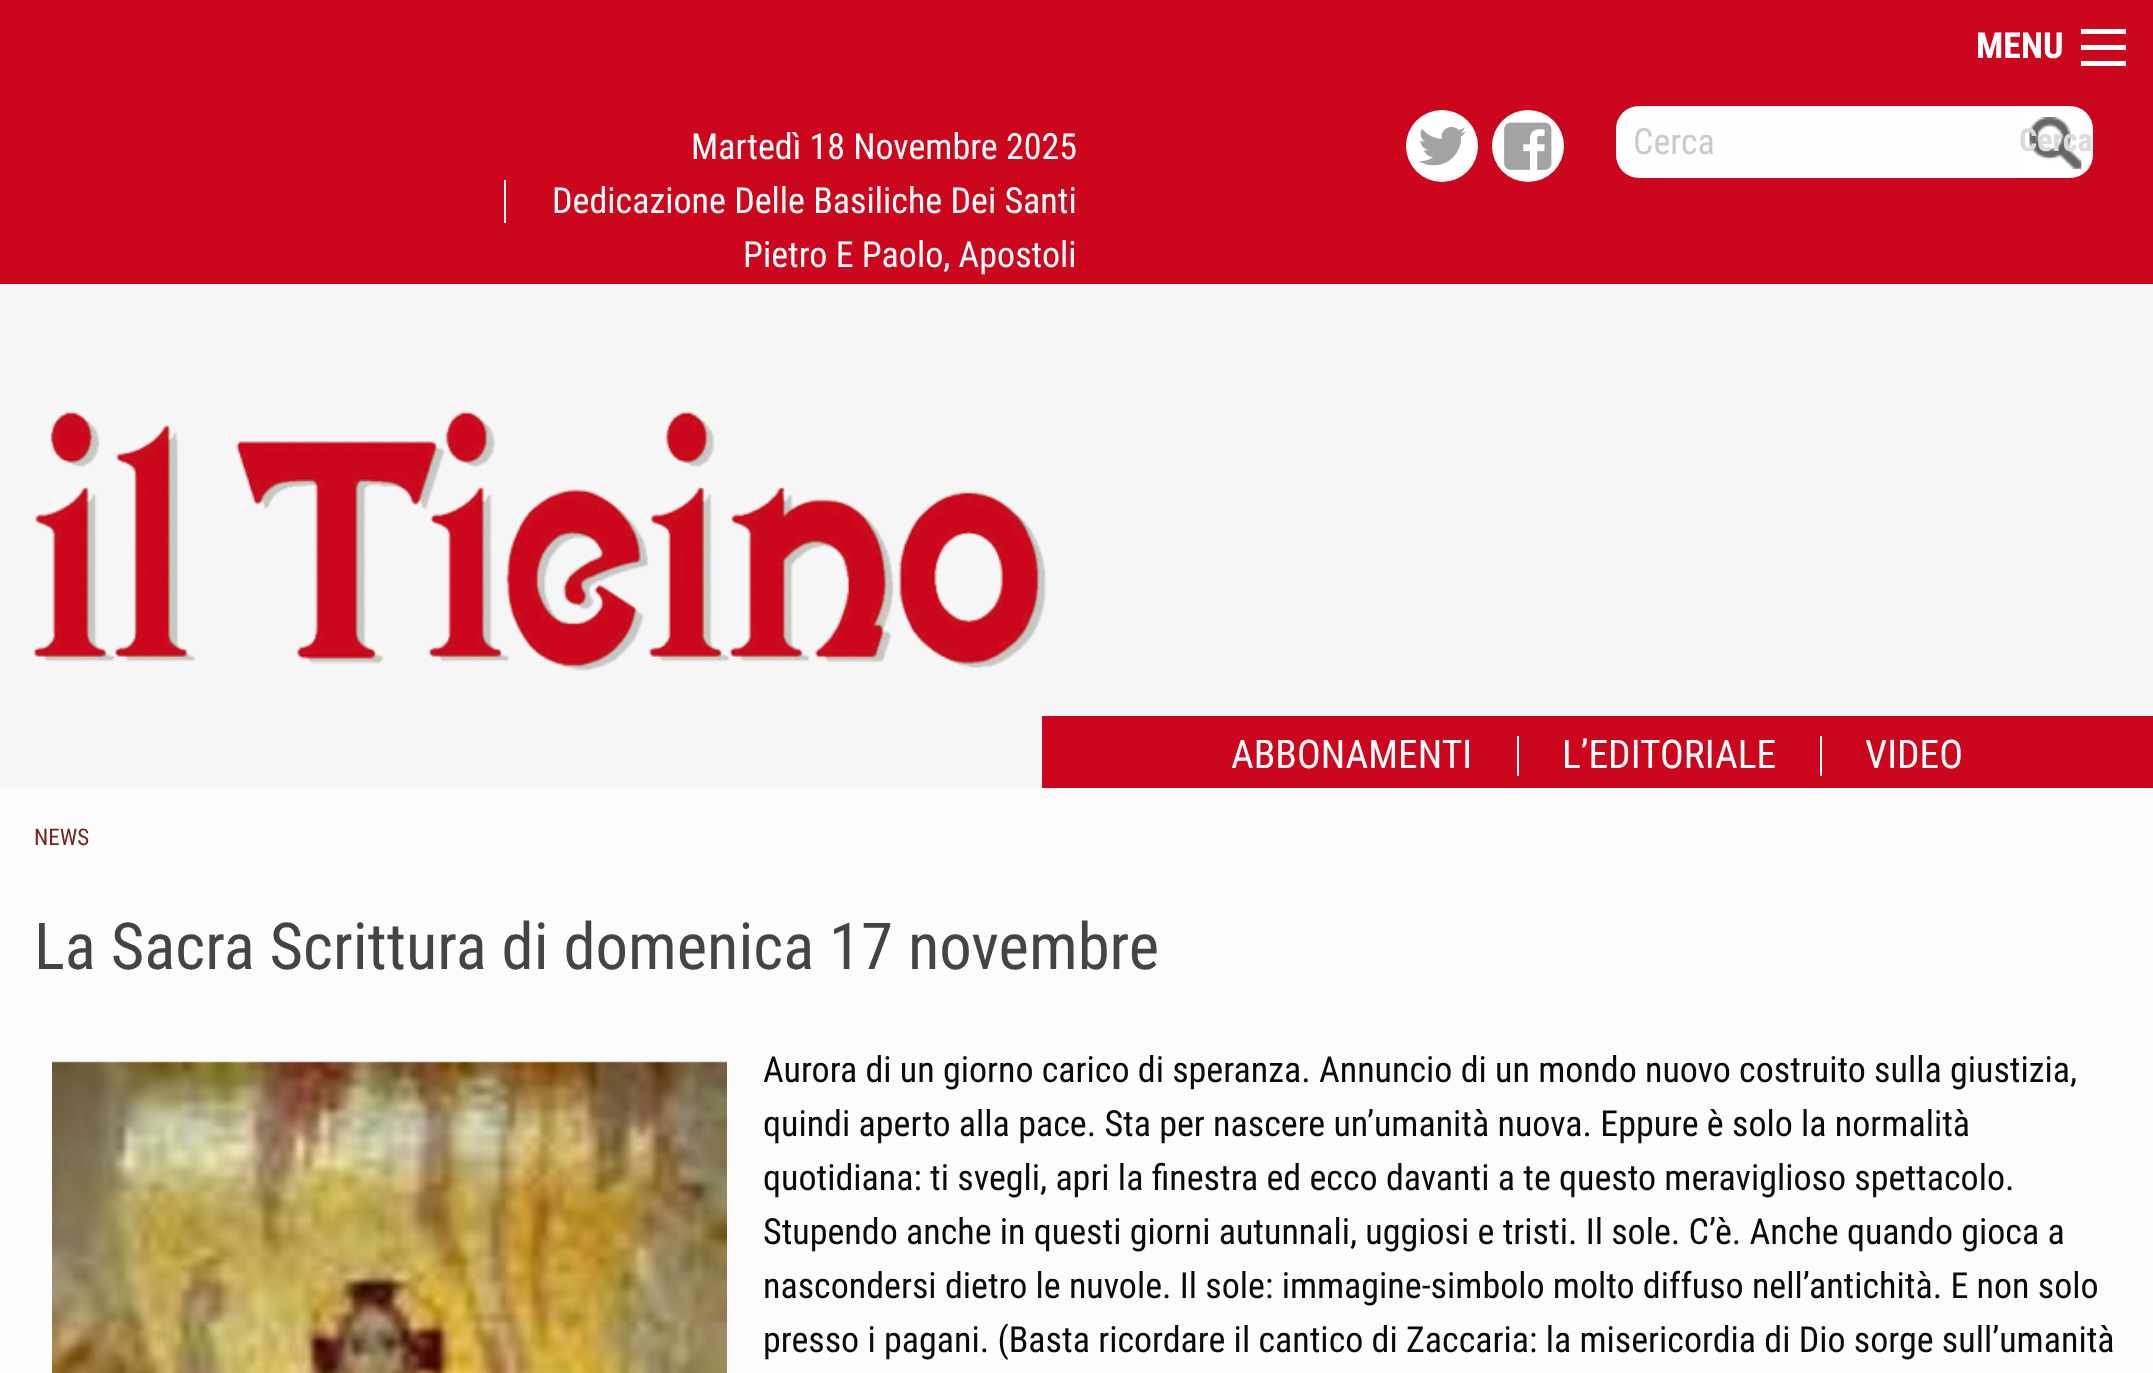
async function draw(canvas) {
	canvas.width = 2153;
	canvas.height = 1373;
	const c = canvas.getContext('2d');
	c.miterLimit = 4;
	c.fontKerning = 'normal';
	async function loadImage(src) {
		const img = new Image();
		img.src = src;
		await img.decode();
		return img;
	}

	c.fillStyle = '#fcfcfc';
	c.fillRect(0, 0, 2153, 1373);
	c.fillStyle = '#cb061d';
	c.fillRect(0, 0, 2153, 284);
	c.font = 'bold 36px Roboto Condensed';
	c.fillStyle = '#fff';
	c.fillText('MENU', 1976, 58);
	for (const [x, y, w, h, color] of [
		[2081, 61, 45, 5, '#fff'],
		[2081, 45, 45, 5, '#fff'],
		[2081, 29, 45, 5, '#fff'],
	]) {
		c.fillStyle = color;
		c.fillRect(x, y, w, h);
	}
	c.font = '36px Roboto Condensed';
	c.fillText('Martedì 18 Novembre 2025', 691, 159);
	c.fillText('Dedicazione Delle Basiliche Dei Santi', 552, 213);
	c.fillRect(504, 180, 2, 43);
	c.fillText('Pietro E Paolo, Apostoli', 743, 267);
	c.beginPath();
	c.arc(1442, 146, 36, 0, 2 * Math.PI);
	c.fill();
	c.drawImage(await loadImage('img1.png'), 1419, 127, 47, 39);
	c.beginPath();
	c.arc(1528, 146, 36, 0, 2 * Math.PI);
	c.fill();
	c.drawImage(await loadImage('img2.png'), 1504, 122, 48, 48);
	c.fillStyle = '#fefefe';
	c.beginPath();
	c.roundRect(1616, 106, 402, 72, [23, 0, 0, 23]);
	c.fill();
	c.fillStyle = '#cacaca';
	c.fillText('Cerca', 1633, 154);
	c.fillStyle = '#fff';
	c.beginPath();
	c.roundRect(2018, 106, 75, 72, [0, 23, 23, 0]);
	c.fill();
	c.drawImage(await loadImage('img3.png'), 2029, 117, 53, 52);
	c.font = 'bold 32px Roboto Condensed';
	c.fillStyle = '#dbdbdb';
	c.fillText('Cerca', 2019, 151);
	c.fillStyle = '#f6f6f6';
	c.fillRect(0, 284, 2153, 504);
	c.drawImage(await loadImage('img4.png'), 33, 411, 1014, 260);
	c.fillStyle = '#cb061d';
	c.fillRect(1042, 716, 1111, 72);
	c.fillStyle = '#fff';
	c.fillRect(1517, 736, 2, 40);
	c.font = '39.5px Roboto Condensed';
	c.fillText('ABBONAMENTI', 1231, 768);
	c.fillRect(1820, 736, 2, 40);
	c.fillText('L’EDITORIALE', 1562, 768);
	c.fillText('VIDEO', 1865, 768);
	c.font = '23px Roboto Condensed';
	c.fillStyle = '#77221b';
	c.fillText('NEWS', 34, 845);
	c.font = '64.75px Roboto Condensed';
	c.fillStyle = '#444';
	c.fillText('La Sacra Scrittura di domenica 17 novembre', 34, 969);
	c.drawImage(await loadImage('img5.png'), 52, 1061, 675, 312);
	c.font = '36px Roboto Condensed';
	c.fillStyle = '#0a0a0a';
	for (const [text, x, y] of [
		['Aurora di un giorno carico di speranza. Annuncio di un mondo nuovo costruito sulla giustizia,', 763, 1082],
		['quindi aperto alla pace. Sta per nascere un’umanità nuova. Eppure è solo la normalità', 763, 1136],
		['quotidiana: ti svegli, apri la finestra ed ecco davanti a te questo meraviglioso spettacolo.', 763, 1190],
		['Stupendo anche in questi giorni autunnali, uggiosi e tristi. Il sole. C’è. Anche quando gioca a', 763, 1244],
		['nascondersi dietro le nuvole. Il sole: immagine-simbolo molto diffuso nell’antichità. E non solo', 763, 1298],
		['presso i pagani. (Basta ricordare il cantico di Zaccaria: la misericordia di Dio sorge sull’umanità', 763, 1352],
	]) {
		c.fillText(text, x, y);
	}
}

draw(document.querySelector('canvas'));
